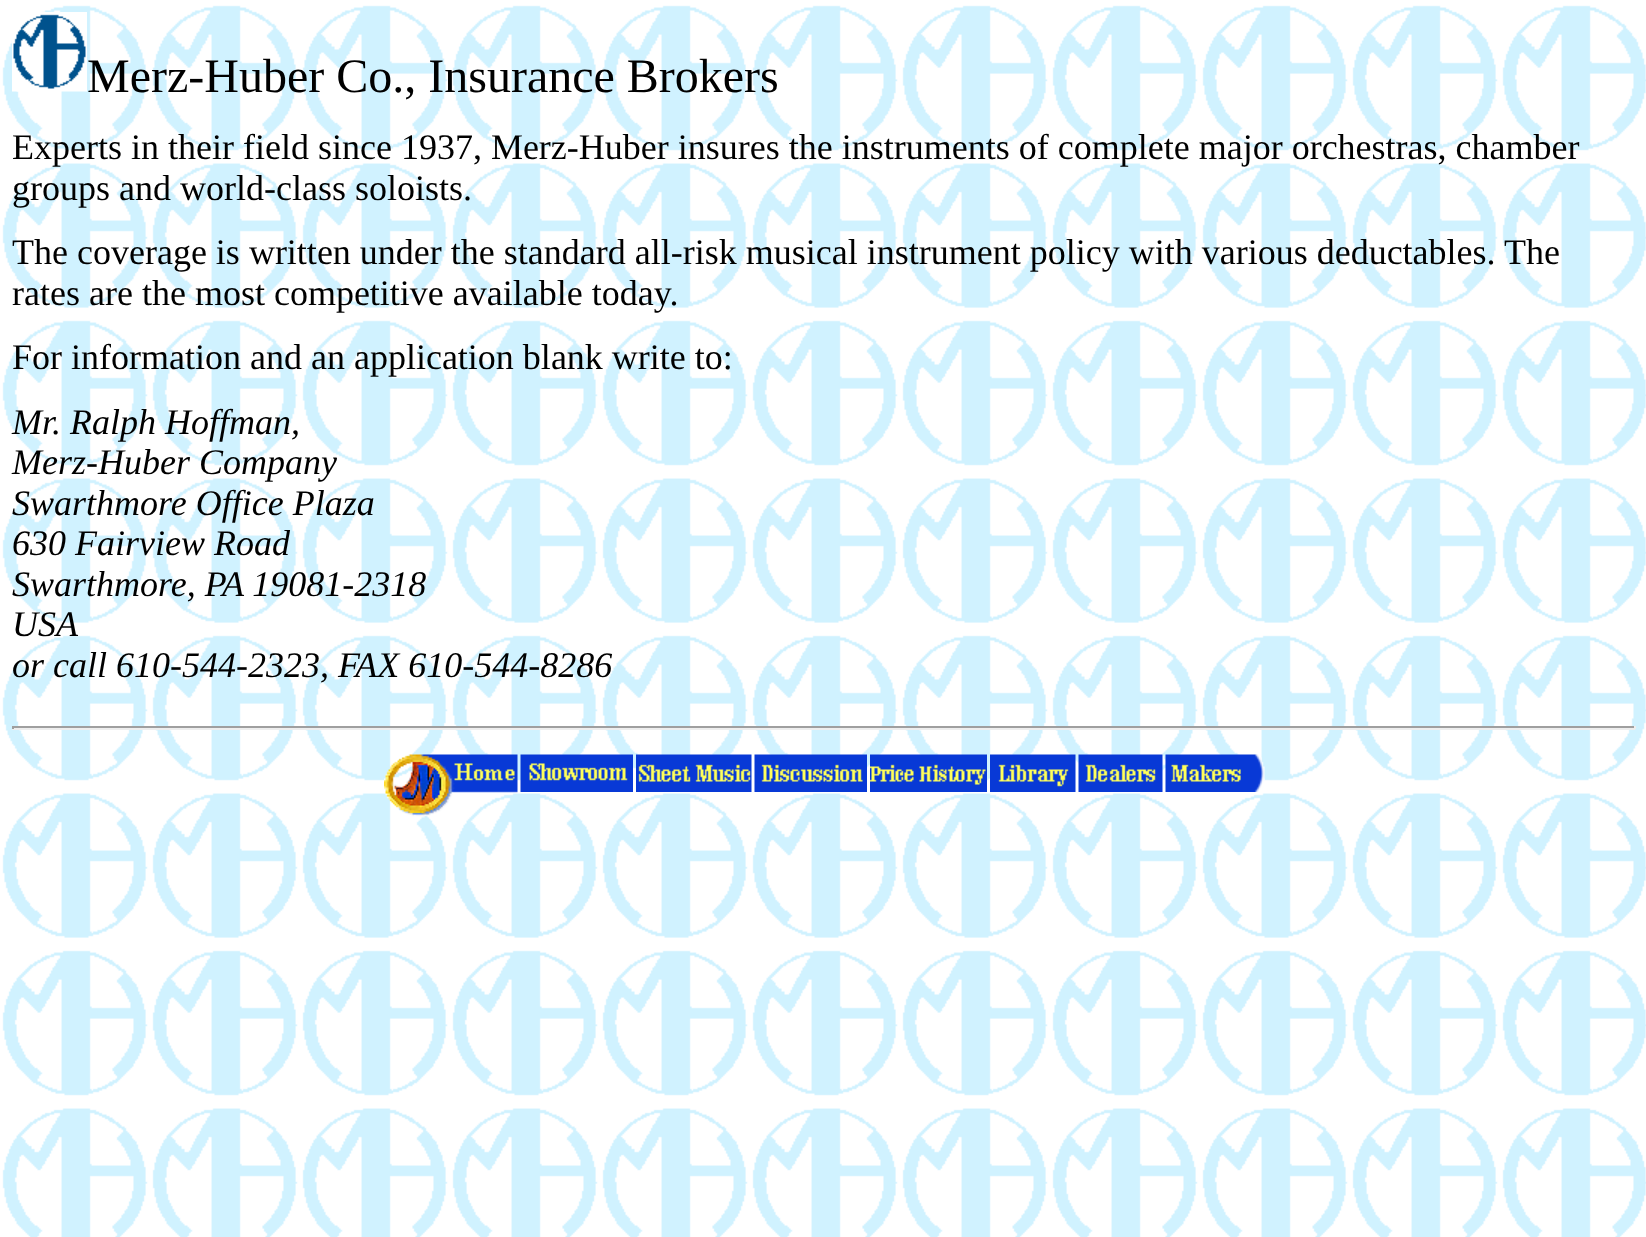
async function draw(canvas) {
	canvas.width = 1646;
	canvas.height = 1237;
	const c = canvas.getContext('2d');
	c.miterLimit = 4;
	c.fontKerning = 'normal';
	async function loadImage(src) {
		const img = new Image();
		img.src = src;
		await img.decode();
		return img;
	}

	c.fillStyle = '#fff';
	c.fillRect(0, 0, 1646, 1237);
	c.drawImage(await loadImage('img1.png'), 2, 5, 1644, 1232);
	c.drawImage(await loadImage('img2.png'), 12, 12, 75, 80);
	c.font = '48px Liberation Serif';
	c.fillStyle = '#000';
	c.fillText('Merz-Huber Co., Insurance Brokers', 87, 92);
	c.font = '36px Liberation Serif';
	for (const [text, x, y] of [
		['Experts in their field since 1937, Merz-Huber insures the instruments of complete major orchestras, chamber', 12, 159],
		['groups and world-class soloists.', 12, 200],
		['The coverage is written under the standard all-risk musical instrument policy with various deductables. The', 12, 264],
		['rates are the most competitive available today.', 12, 305],
		['For information and an application blank write to:', 12, 369],
	]) {
		c.fillText(text, x, y);
	}
	c.font = 'italic 36px Liberation Serif';
	for (const [text, x, y] of [
		['Mr. Ralph Hoffman,', 12, 434],
		['Merz-Huber Company', 12, 474],
		['Swarthmore Office Plaza', 12, 515],
		['630 Fairview Road', 12, 555],
		['Swarthmore, PA 19081-2318', 12, 596],
		['USA', 12, 636],
		['or call 610-544-2323, FAX 610-544-8286', 12, 677],
	]) {
		c.fillText(text, x, y);
	}
	for (const [x, y, w, h, color] of [
		[12, 726, 1623, 2, '#9f9f9f'],
		[1634, 726, 2, 3, '#eee'],
		[12, 728, 1623, 2, '#eee'],
		[12, 726, 2, 3, '#9f9f9f'],
	]) {
		c.fillStyle = color;
		c.fillRect(x, y, w, h);
	}
	c.drawImage(await loadImage('img3.png'), 384, 754, 134, 64);
	c.drawImage(await loadImage('img4.png'), 520, 754, 113, 38);
	c.drawImage(await loadImage('img5.png'), 636, 754, 116, 38);
	c.drawImage(await loadImage('img6.png'), 754, 754, 113, 38);
	c.drawImage(await loadImage('img7.png'), 870, 754, 117, 38);
	c.drawImage(await loadImage('img8.png'), 990, 754, 86, 38);
	c.drawImage(await loadImage('img9.png'), 1078, 754, 85, 38);
	c.drawImage(await loadImage('img10.png'), 1165, 754, 100, 38);
}

draw(document.querySelector('canvas'));
